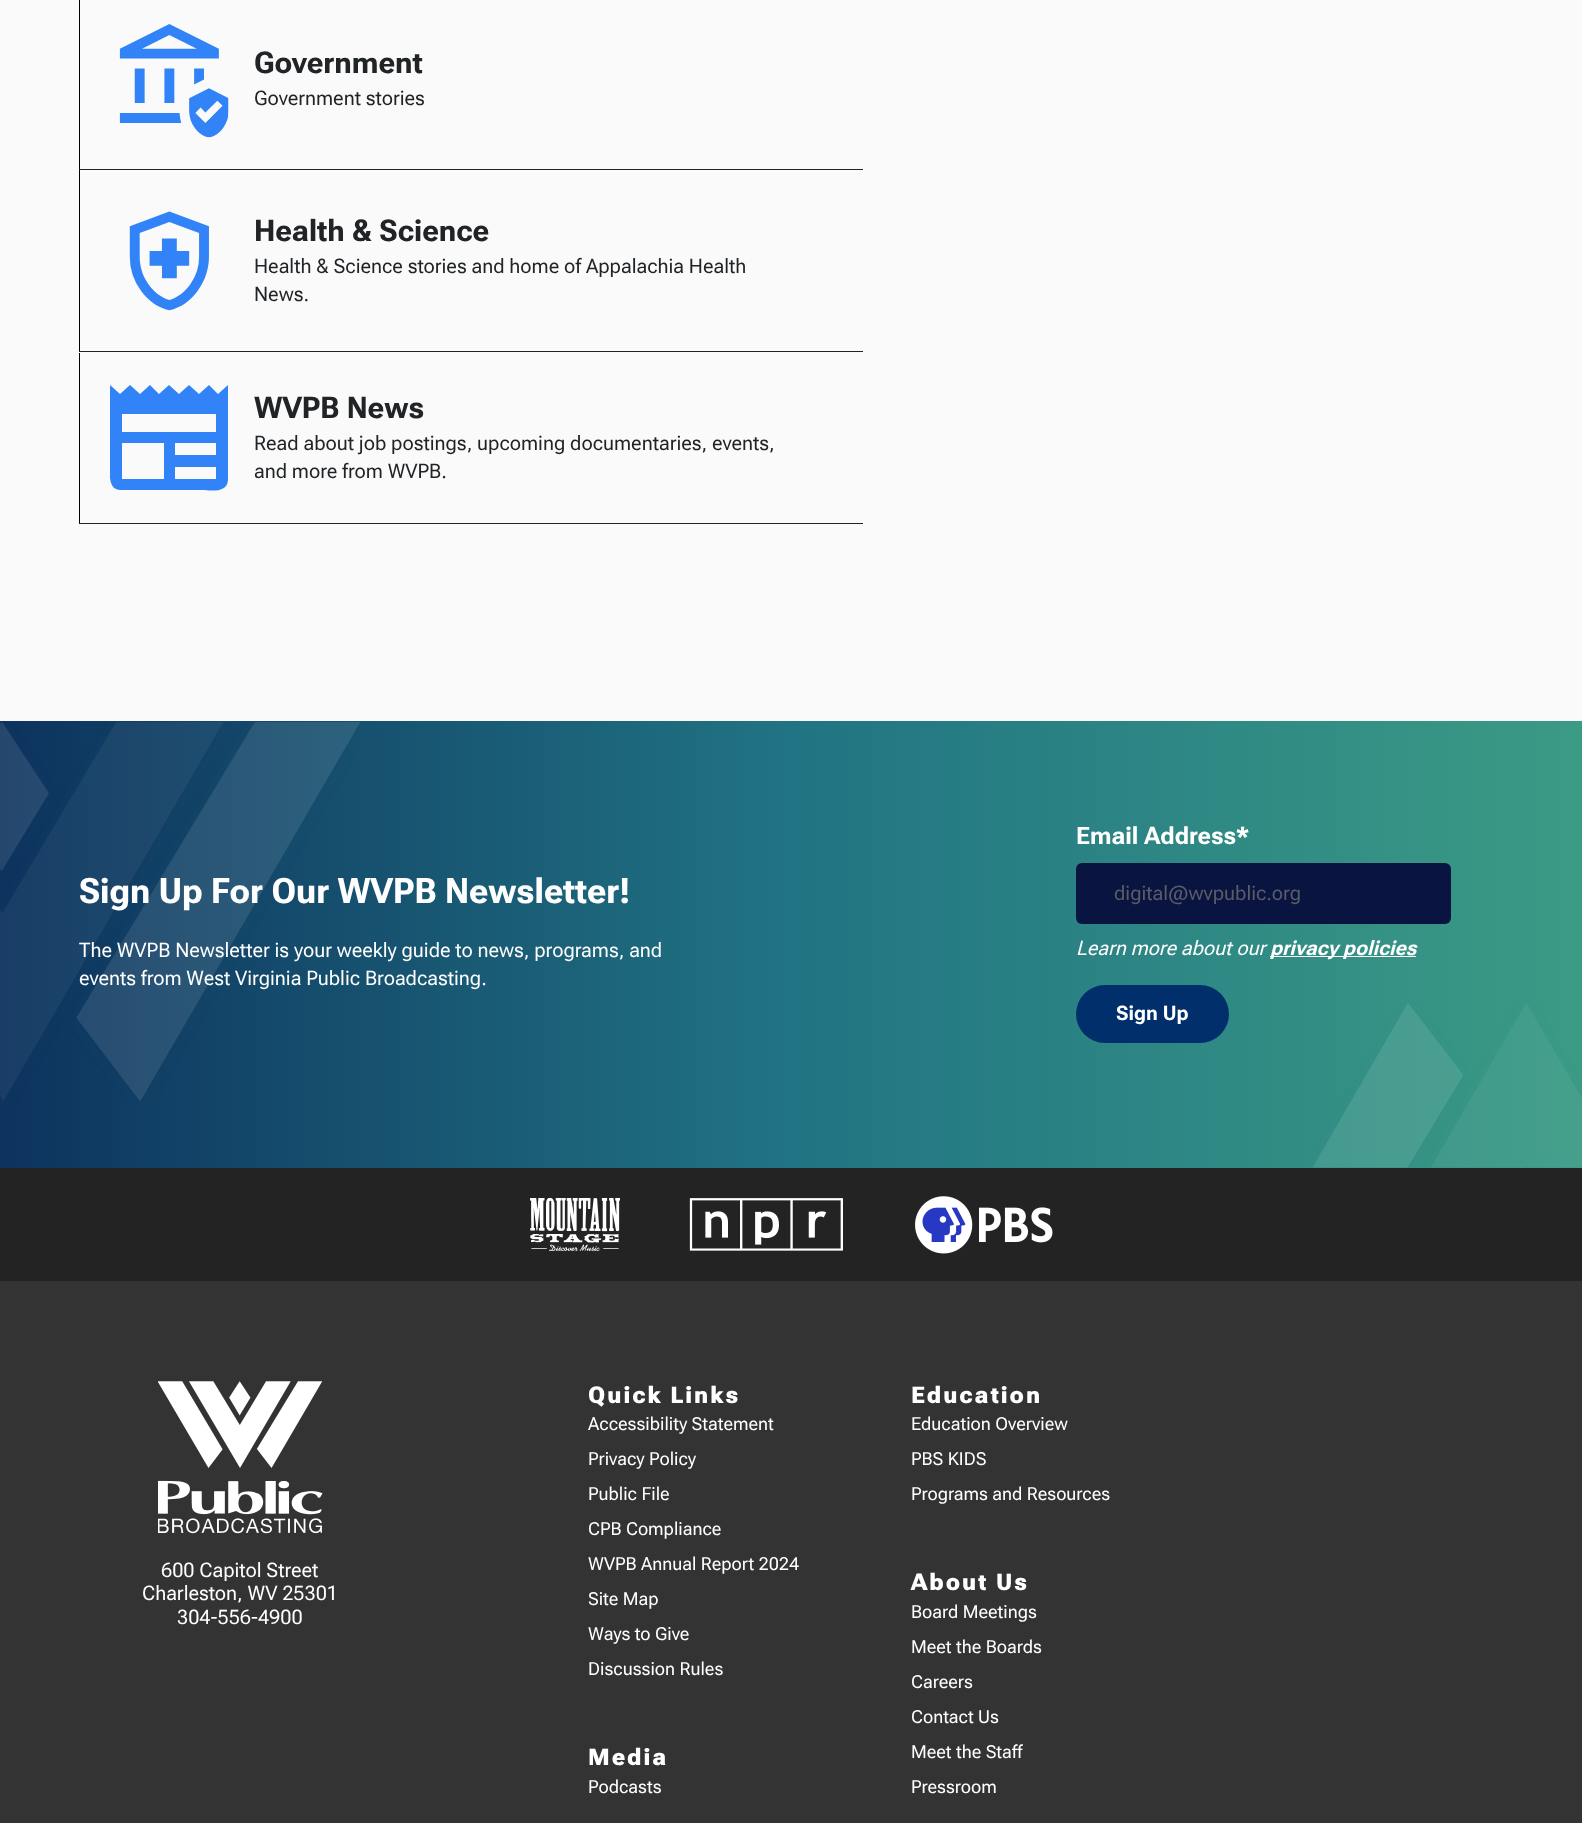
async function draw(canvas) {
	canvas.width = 1582;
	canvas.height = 1823;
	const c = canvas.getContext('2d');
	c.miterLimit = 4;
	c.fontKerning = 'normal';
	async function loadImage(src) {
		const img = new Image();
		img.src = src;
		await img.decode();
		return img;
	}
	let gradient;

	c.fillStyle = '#fafafa';
	c.fillRect(0, 0, 1582, 1823);
	c.fillStyle = '#212427';
	c.fillRect(79, 169, 784, 1);
	c.fillStyle = '#000';
	c.fillRect(79, 0, 1, 169);
	c.drawImage(await loadImage('img1.png'), 119, 24, 110, 114);
	c.font = 'bold 30px Roboto Flex';
	c.fillStyle = '#212427';
	c.fillText('Government', 254, 73);
	c.font = '20px Roboto Flex';
	c.fillText('Government stories', 254, 105);
	c.fillRect(79, 351, 784, 1);
	c.fillStyle = '#000';
	c.fillRect(79, 170, 1, 181);
	c.drawImage(await loadImage('img2.png'), 129, 211, 80, 100);
	c.font = 'bold 30px Roboto Flex';
	c.fillStyle = '#212427';
	c.fillText('Health & Science', 254, 241);
	c.font = '20px Roboto Flex';
	c.fillText('Health & Science stories and home of Appalachia Health', 254, 273);
	c.fillText('News.', 254, 301);
	c.fillRect(79, 523, 784, 1);
	c.fillStyle = '#000';
	c.fillRect(79, 353, 1, 170);
	c.save();
	c.beginPath();
	c.rect(110, 384, 119, 107);
	c.clip();
	c.fillStyle = '#3183f7';
	c.beginPath();
	c.moveTo(122, 490);
	c.bezierCurveTo(107, 491, 110, 472, 110, 463);
	c.lineTo(110, 385);
	c.lineTo(120, 394);
	c.lineTo(130, 385);
	c.lineTo(140, 394);
	c.lineTo(150, 385);
	c.lineTo(159, 394);
	c.lineTo(169, 385);
	c.lineTo(179, 394);
	c.lineTo(189, 385);
	c.lineTo(199, 394);
	c.lineTo(209, 385);
	c.lineTo(218, 394);
	c.lineTo(228, 385);
	c.lineTo(228, 480);
	c.bezierCurveTo(227, 494, 210, 490, 201, 490);
	c.closePath();
	c.moveTo(122, 479);
	c.lineTo(164, 479);
	c.lineTo(164, 443);
	c.lineTo(122, 443);
	c.closePath();
	c.moveTo(175, 479);
	c.lineTo(216, 479);
	c.lineTo(216, 467);
	c.lineTo(175, 467);
	c.closePath();
	c.moveTo(175, 455);
	c.lineTo(216, 455);
	c.lineTo(216, 443);
	c.lineTo(175, 443);
	c.closePath();
	c.moveTo(122, 432);
	c.lineTo(216, 432);
	c.lineTo(216, 414);
	c.lineTo(122, 414);
	c.closePath();
	c.fill();
	c.restore();
	c.font = 'bold 30px Roboto Flex';
	c.fillStyle = '#212427';
	c.fillText('WVPB News', 254, 418);
	c.font = '20px Roboto Flex';
	c.fillText('Read about job postings, upcoming documentaries, events,', 254, 450);
	c.fillText('and more from WVPB.', 254, 478);
	gradient = c.createLinearGradient(0, 944, 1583, 944);
	gradient.addColorStop(0, '#0d335e');
	gradient.addColorStop(0.5, '#217483');
	gradient.addColorStop(1, '#3b9b85');
	c.fillStyle = gradient;
	c.fillRect(0, 721, 1582, 447);
	c.drawImage(await loadImage('img3.png'), 0, 722, 360, 379);
	c.font = 'bold 35px "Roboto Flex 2"';
	c.fillStyle = '#fff';
	c.fillText('Sign Up For Our WVPB Newsletter!', 79, 903);
	c.font = '20px Roboto Flex';
	c.fillText('The WVPB Newsletter is your weekly guide to news, programs, and', 79, 957);
	c.fillText('events from West Virginia Public Broadcasting.', 79, 985);
	c.font = 'bold 24px "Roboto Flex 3"';
	c.fillText('Email Address*', 1076, 844);
	c.fillStyle = '#091540';
	c.beginPath();
	c.roundRect(1076, 863, 375, 61, 6);
	c.fill();
	c.font = '20px Roboto Flex';
	c.fillStyle = '#5a5d68';
	c.fillText('digital@wvpublic.org', 1114, 900);
	c.font = 'italic 20px Roboto Flex';
	c.fillStyle = '#fff';
	c.fillText('Learn more about our', 1076, 955);
	c.fillRect(1270, 956, 146, 1);
	c.font = 'italic bold 20px Roboto Flex';
	c.fillText('privacy policies', 1270, 955);
	c.fillStyle = '#002f6c';
	c.beginPath();
	c.roundRect(1076, 985, 153, 58, 29);
	c.fill();
	c.font = 'bold 20px "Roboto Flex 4"';
	c.fillStyle = '#fff';
	c.fillText('Sign Up', 1116, 1020);
	c.drawImage(await loadImage('img4.png'), 1313, 1003, 269, 165);
	c.fillStyle = '#333';
	c.fillRect(0, 1281, 1582, 542);
	c.fillStyle = '#232323';
	c.fillRect(0, 1168, 1582, 113);
	c.drawImage(await loadImage('img5.png'), 530, 1198, 90, 53);
	c.drawImage(await loadImage('img6.png'), 689, 1198, 154, 53);
	c.drawImage(await loadImage('img7.png'), 915, 1196, 138, 58);
	c.drawImage(await loadImage('img8.png'), 158, 1381, 165, 153);
	c.font = '20px Roboto Flex';
	c.fillStyle = '#fff';
	for (const [text, x, y] of [
		['600 Capitol Street', 161, 1577],
		['Charleston, WV 25301', 142, 1600],
		['304-556-4900', 177, 1624],
	]) {
		c.fillText(text, x, y);
	}
	c.letterSpacing = '2px';
	c.font = '900 23px Roboto Flex';
	c.fillText('Quick Links', 588, 1403);
	c.letterSpacing = '0px';
	c.font = '18px "Roboto Flex 2"';
	for (const [text, x, y] of [
		['Accessibility Statement', 588, 1430],
		['Privacy Policy', 588, 1465],
		['Public File', 588, 1500],
		['CPB Compliance', 588, 1535],
		['WVPB Annual Report 2024', 588, 1570],
		['Site Map', 588, 1605],
		['Ways to Give', 588, 1640],
		['Discussion Rules', 588, 1675],
	]) {
		c.fillText(text, x, y);
	}
	c.letterSpacing = '2px';
	c.font = '900 23px Roboto Flex';
	c.fillText('Media', 588, 1765);
	c.letterSpacing = '0px';
	c.font = '18px "Roboto Flex 2"';
	c.fillText('Podcasts', 588, 1793);
	c.letterSpacing = '2px';
	c.font = '900 23px Roboto Flex';
	c.fillText('Education', 911, 1403);
	c.letterSpacing = '0px';
	c.font = '18px "Roboto Flex 2"';
	for (const [text, x, y] of [
		['Education Overview', 911, 1430],
		['PBS KIDS', 911, 1465],
		['Programs and Resources', 911, 1500],
	]) {
		c.fillText(text, x, y);
	}
	c.letterSpacing = '2px';
	c.font = '900 23px Roboto Flex';
	c.fillText('About Us', 911, 1590);
	c.letterSpacing = '0px';
	c.font = '18px "Roboto Flex 2"';
	for (const [text, x, y] of [
		['Board Meetings', 911, 1618],
		['Meet the Boards', 911, 1653],
		['Careers', 911, 1688],
		['Contact Us', 911, 1723],
		['Meet the Staff', 911, 1758],
		['Pressroom', 911, 1793],
	]) {
		c.fillText(text, x, y);
	}
}

draw(document.querySelector('canvas'));
